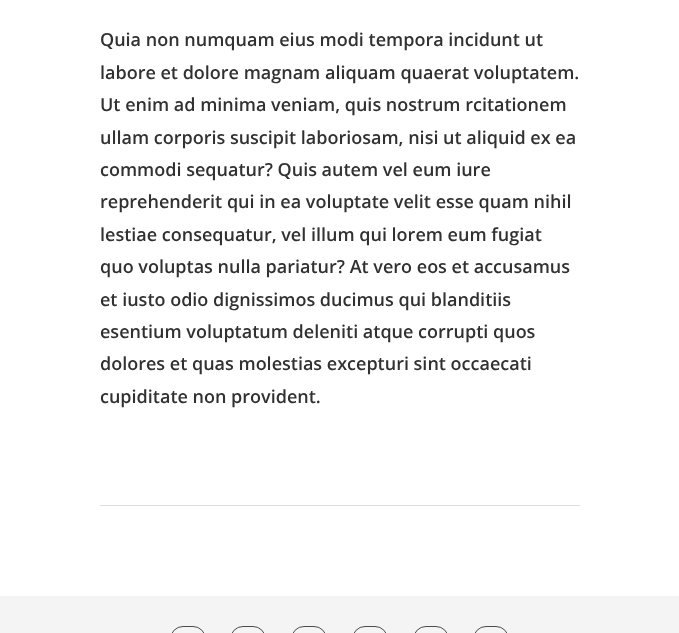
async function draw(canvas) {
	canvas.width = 679;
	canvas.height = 633;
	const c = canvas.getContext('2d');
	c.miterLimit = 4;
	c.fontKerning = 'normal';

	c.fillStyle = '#fff';
	c.fillRect(0, 0, 679, 633);
	c.font = '600 18px Open Sans';
	c.fillStyle = '#313131';
	for (const [text, x, y] of [
		['Quia non numquam eius modi tempora incidunt ut', 100, 46],
		['labore et dolore magnam aliquam quaerat voluptatem.', 100, 79],
		['Ut enim ad minima veniam, quis nostrum rcitationem', 100, 111],
		['ullam corporis suscipit laboriosam, nisi ut aliquid ex ea', 100, 144],
		['commodi sequatur? Quis autem vel eum iure', 100, 176],
		['reprehenderit qui in ea voluptate velit esse quam nihil', 100, 208],
		['lestiae consequatur, vel illum qui lorem eum fugiat', 100, 241],
		['quo voluptas nulla pariatur? At vero eos et accusamus', 100, 273],
		['et iusto odio dignissimos ducimus qui blanditiis', 100, 306],
		['esentium voluptatum deleniti atque corrupti quos', 100, 338],
		['dolores et quas molestias excepturi sint occaecati', 100, 370],
		['cupiditate non provident.', 100, 403],
	]) {
		c.fillText(text, x, y);
	}
	c.fillStyle = '#dedede';
	c.fillRect(100, 505, 480, 1);
	c.fillStyle = '#f4f4f4';
	c.fillRect(0, 596, 679, 37);
	c.beginPath();
	c.roundRect(170.5, 626.5, 35, 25, 17.5);
	c.strokeStyle = '#4c4c4c';
	c.stroke();
	c.beginPath();
	c.roundRect(230.5, 626.5, 35, 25, 17.5);
	c.stroke();
	c.beginPath();
	c.roundRect(291.5, 626.5, 35, 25, 17.5);
	c.stroke();
	c.beginPath();
	c.roundRect(352.5, 626.5, 35, 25, 17.5);
	c.stroke();
	c.beginPath();
	c.roundRect(413.5, 626.5, 35, 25, 17.5);
	c.stroke();
	c.beginPath();
	c.roundRect(473.5, 626.5, 35, 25, 17.5);
	c.stroke();
}

draw(document.querySelector('canvas'));
